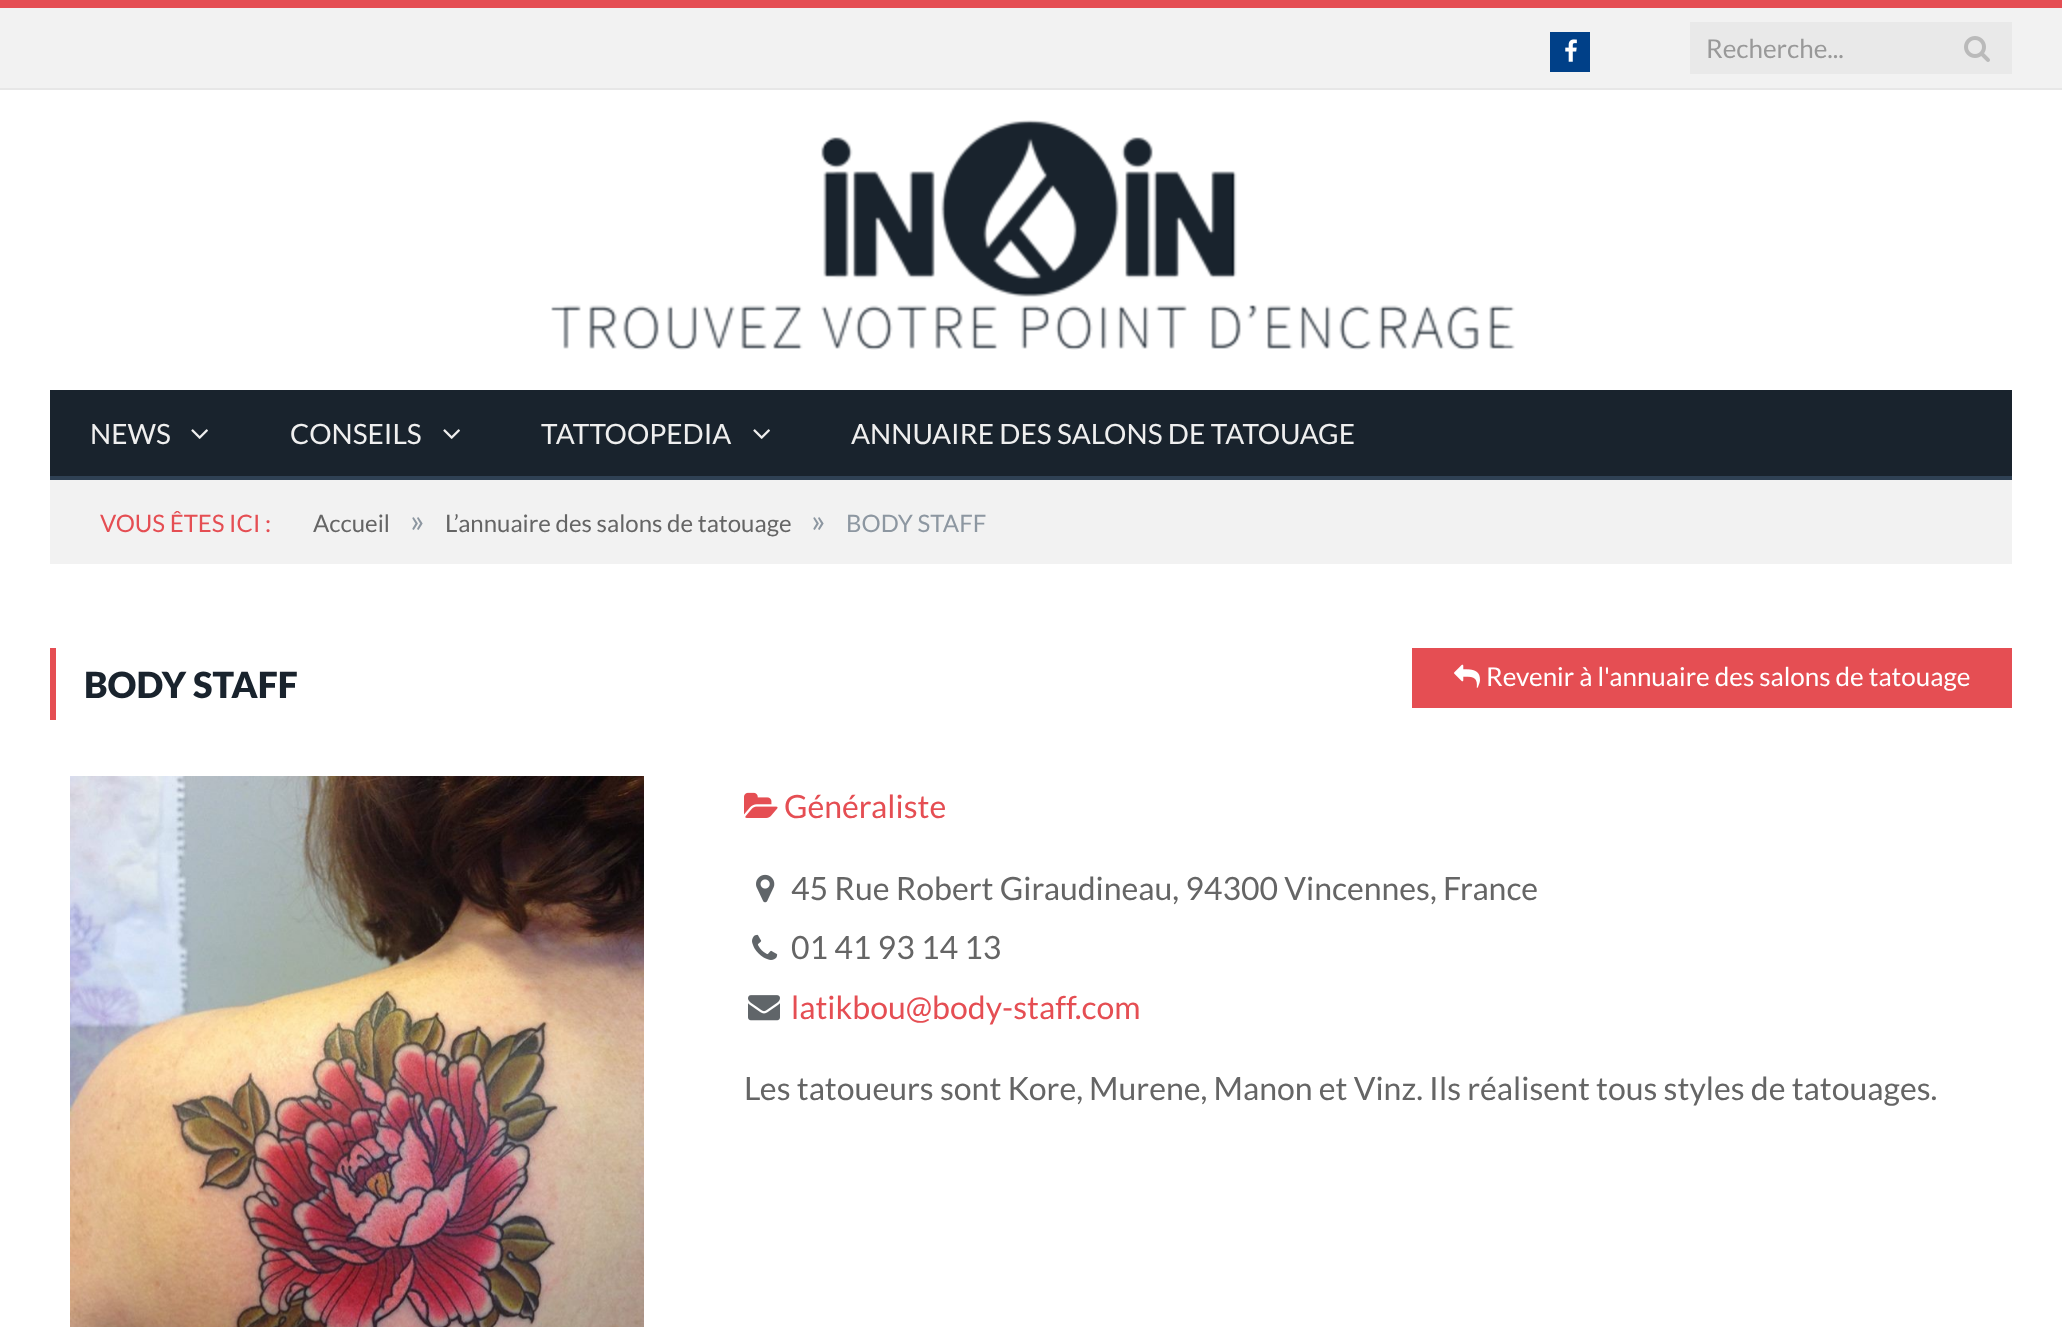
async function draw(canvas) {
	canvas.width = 2062;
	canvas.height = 1327;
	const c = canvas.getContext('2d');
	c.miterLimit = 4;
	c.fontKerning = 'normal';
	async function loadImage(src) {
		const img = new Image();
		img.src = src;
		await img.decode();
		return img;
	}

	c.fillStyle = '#fff';
	c.fillRect(0, 0, 2062, 1327);
	for (const [x, y, w, h, color] of [
		[0, 8, 2062, 80, '#f2f2f2'],
		[0, 0, 2062, 8, '#e54e53'],
		[0, 88, 2062, 2, '#e7e7e7'],
		[1550, 32, 40, 40, '#004088'],
	]) {
		c.fillStyle = color;
		c.fillRect(x, y, w, h);
	}
	c.drawImage(await loadImage('img1.png'), 1565, 39, 12, 23);
	c.fillStyle = '#e9e9e9';
	c.fillRect(1690, 22, 322, 52);
	c.font = '26px Lato';
	c.fillStyle = '#999';
	c.fillText('Recherche...', 1706, 58);
	c.drawImage(await loadImage('img2.png'), 1964, 36, 26, 26);
	c.drawImage(await loadImage('img3.png'), 551, 120, 964, 230);
	c.fillStyle = '#19232d';
	c.fillRect(50, 390, 1962, 86);
	c.fillStyle = '#2f4154';
	c.fillRect(50, 476, 1962, 4);
	c.font = '28px Lato';
	c.fillStyle = '#efefef';
	c.fillText('NEWS', 90, 444);
	c.drawImage(await loadImage('img4.png'), 191, 429, 17, 10);
	c.fillText('CONSEILS', 290, 444);
	c.drawImage(await loadImage('img4.png'), 443, 429, 17, 10);
	c.fillText('TATTOOPEDIA', 541, 444);
	c.drawImage(await loadImage('img4.png'), 753, 429, 17, 10);
	c.fillText('ANNUAIRE DES SALONS DE TATOUAGE', 851, 444);
	c.fillStyle = '#f2f2f2';
	c.fillRect(50, 480, 1962, 84);
	c.font = '24px Lato';
	c.fillStyle = '#e54e53';
	c.fillText('VOUS ÊTES ICI :', 100, 532);
	c.fillStyle = '#656565';
	c.fillText('Accueil', 313, 532);
	c.font = '32px Lato';
	c.fillStyle = '#8d97a1';
	c.fillText('»', 410, 532);
	c.font = '24px Lato';
	c.fillStyle = '#656565';
	c.fillText('L’annuaire des salons de tatouage', 445, 532);
	c.font = '32px Lato';
	c.fillStyle = '#8d97a1';
	c.fillText('»', 811, 532);
	c.font = '24px Lato';
	c.fillText('BODY STAFF', 846, 532);
	c.fillStyle = '#e54e53';
	c.fillRect(50, 648, 6, 72);
	c.font = '900 36px Lato';
	c.fillStyle = '#19232d';
	c.fillText('BODY STAFF', 84, 698);
	c.fillStyle = '#e54e53';
	c.fillRect(1412, 648, 600, 60);
	c.drawImage(await loadImage('img5.png'), 1454, 664, 26, 24);
	c.font = '26px Lato';
	c.fillStyle = '#fff';
	c.fillText('Revenir à l\'annuaire des salons de tatouage', 1486, 686);
	c.drawImage(await loadImage('img6.png'), 70, 776, 574, 551);
	c.drawImage(await loadImage('img7.png'), 744, 792, 34, 26);
	c.font = '32px Lato';
	c.fillStyle = '#e54e53';
	c.fillText('Généraliste', 784, 818);
	c.drawImage(await loadImage('img8.png'), 756, 874, 19, 29);
	c.fillStyle = '#656565';
	c.fillText('45 Rue Robert Giraudineau, 94300 Vincennes, France', 791, 900);
	c.drawImage(await loadImage('img9.png'), 752, 934, 26, 26);
	c.fillText('01 41 93 14 13', 791, 959);
	c.drawImage(await loadImage('img10.png'), 748, 995, 32, 26);
	c.fillStyle = '#e54e53';
	c.fillText('latikbou@body-staff.com', 791, 1019);
	c.fillStyle = '#656565';
	c.fillText('Les tatoueurs sont Kore, Murene, Manon et Vinz. Ils réalisent tous styles de tatouages.', 744, 1100);
}

draw(document.querySelector('canvas'));
